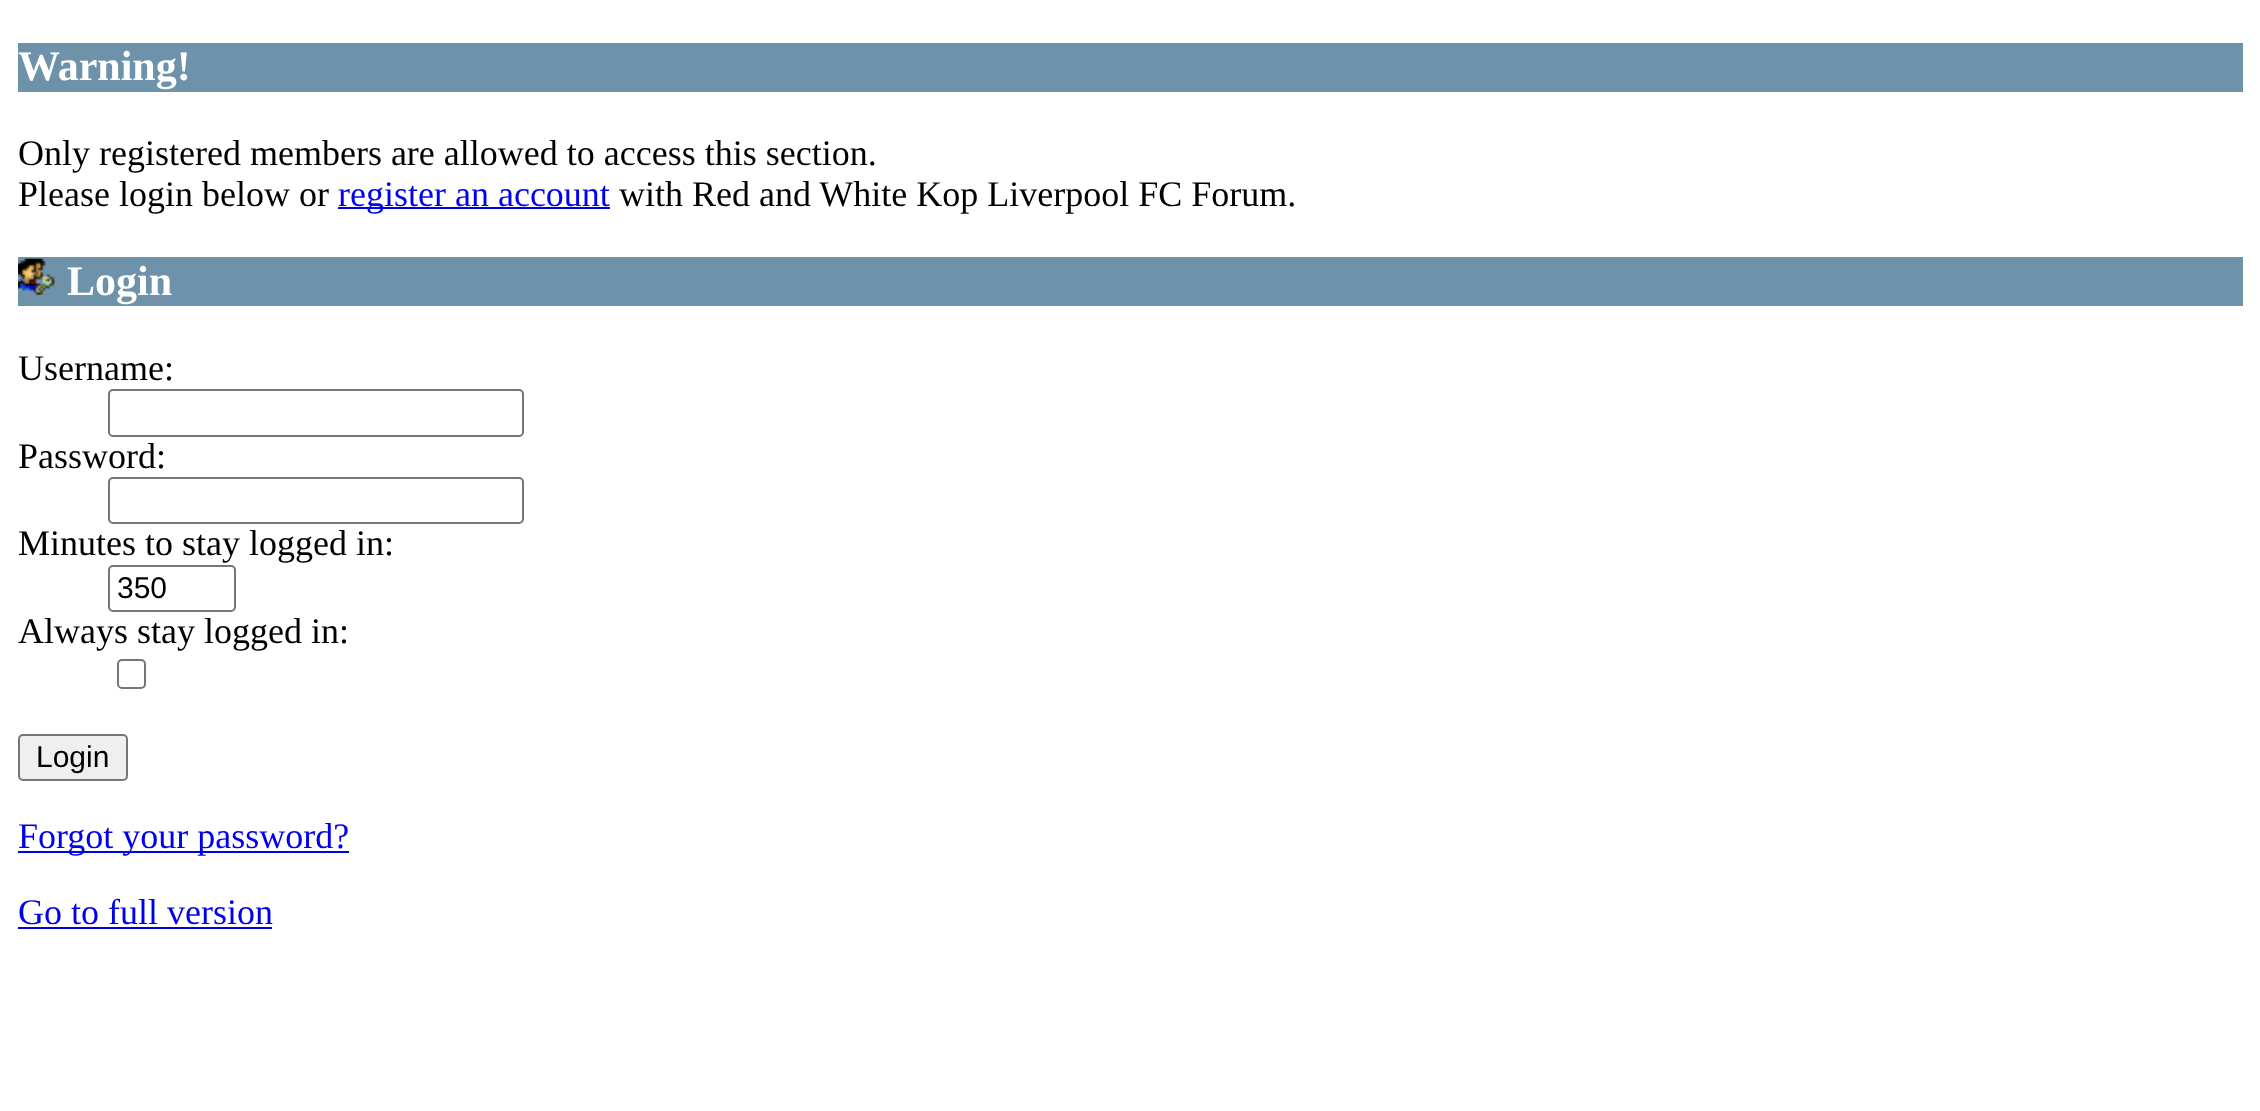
async function draw(canvas) {
	canvas.width = 2260;
	canvas.height = 1111;
	const c = canvas.getContext('2d');
	c.miterLimit = 4;
	c.fontKerning = 'normal';
	async function loadImage(src) {
		const img = new Image();
		img.src = src;
		await img.decode();
		return img;
	}

	c.fillStyle = '#fff';
	c.fillRect(0, 0, 2260, 1111);
	c.fillStyle = '#6d92aa';
	c.fillRect(18, 43, 2225, 49);
	c.font = 'bold 42px Liberation Serif';
	c.fillStyle = '#fff';
	c.fillText('Warning!', 18, 80);
	c.font = '36px Liberation Serif';
	c.fillStyle = '#000';
	c.fillText('Only registered members are allowed to access this section.', 18, 165);
	c.fillText('Please login below or', 18, 206);
	c.fillStyle = '#00e';
	c.fillRect(338, 207, 272, 2);
	c.fillText('register an account', 338, 206);
	c.fillStyle = '#000';
	c.fillText('with Red and White Kop Liverpool FC Forum.', 619, 206);
	c.fillStyle = '#6d92aa';
	c.fillRect(18, 257, 2225, 49);
	c.drawImage(await loadImage('img1.png'), 18, 258, 37, 37);
	c.font = 'bold 42px Liberation Serif';
	c.fillStyle = '#fff';
	c.fillText('Login', 67, 295);
	c.font = '36px Liberation Serif';
	c.fillStyle = '#000';
	c.fillText('Username:', 18, 380);
	c.beginPath();
	c.roundRect(109, 390, 414, 46, 4);
	c.strokeStyle = '#767676';
	c.lineWidth = 2;
	c.stroke();
	c.fillText('Password:', 18, 468);
	c.beginPath();
	c.roundRect(109, 478, 414, 45, 4);
	c.stroke();
	c.fillText('Minutes to stay logged in:', 18, 555);
	c.beginPath();
	c.roundRect(109, 566, 126, 45, 4);
	c.stroke();
	c.font = '30px Liberation Sans';
	c.fillText('350', 117, 598);
	c.font = '36px Liberation Serif';
	c.fillText('Always stay logged in:', 18, 643);
	c.beginPath();
	c.roundRect(118, 660, 27, 28, 4);
	c.stroke();
	c.fillStyle = '#efefef';
	c.beginPath();
	c.roundRect(19, 735, 108, 45, 4);
	c.fill();
	c.stroke();
	c.font = '30px Liberation Sans';
	c.fillStyle = '#000';
	c.fillText('Login', 36, 767);
	c.fillStyle = '#00e';
	c.fillRect(18, 851, 331, 2);
	c.font = '36px Liberation Serif';
	c.fillText('Forgot your password?', 18, 848);
	c.fillText('Go to full version', 18, 924);
	c.fillRect(18, 927, 254, 2);
}

draw(document.querySelector('canvas'));
